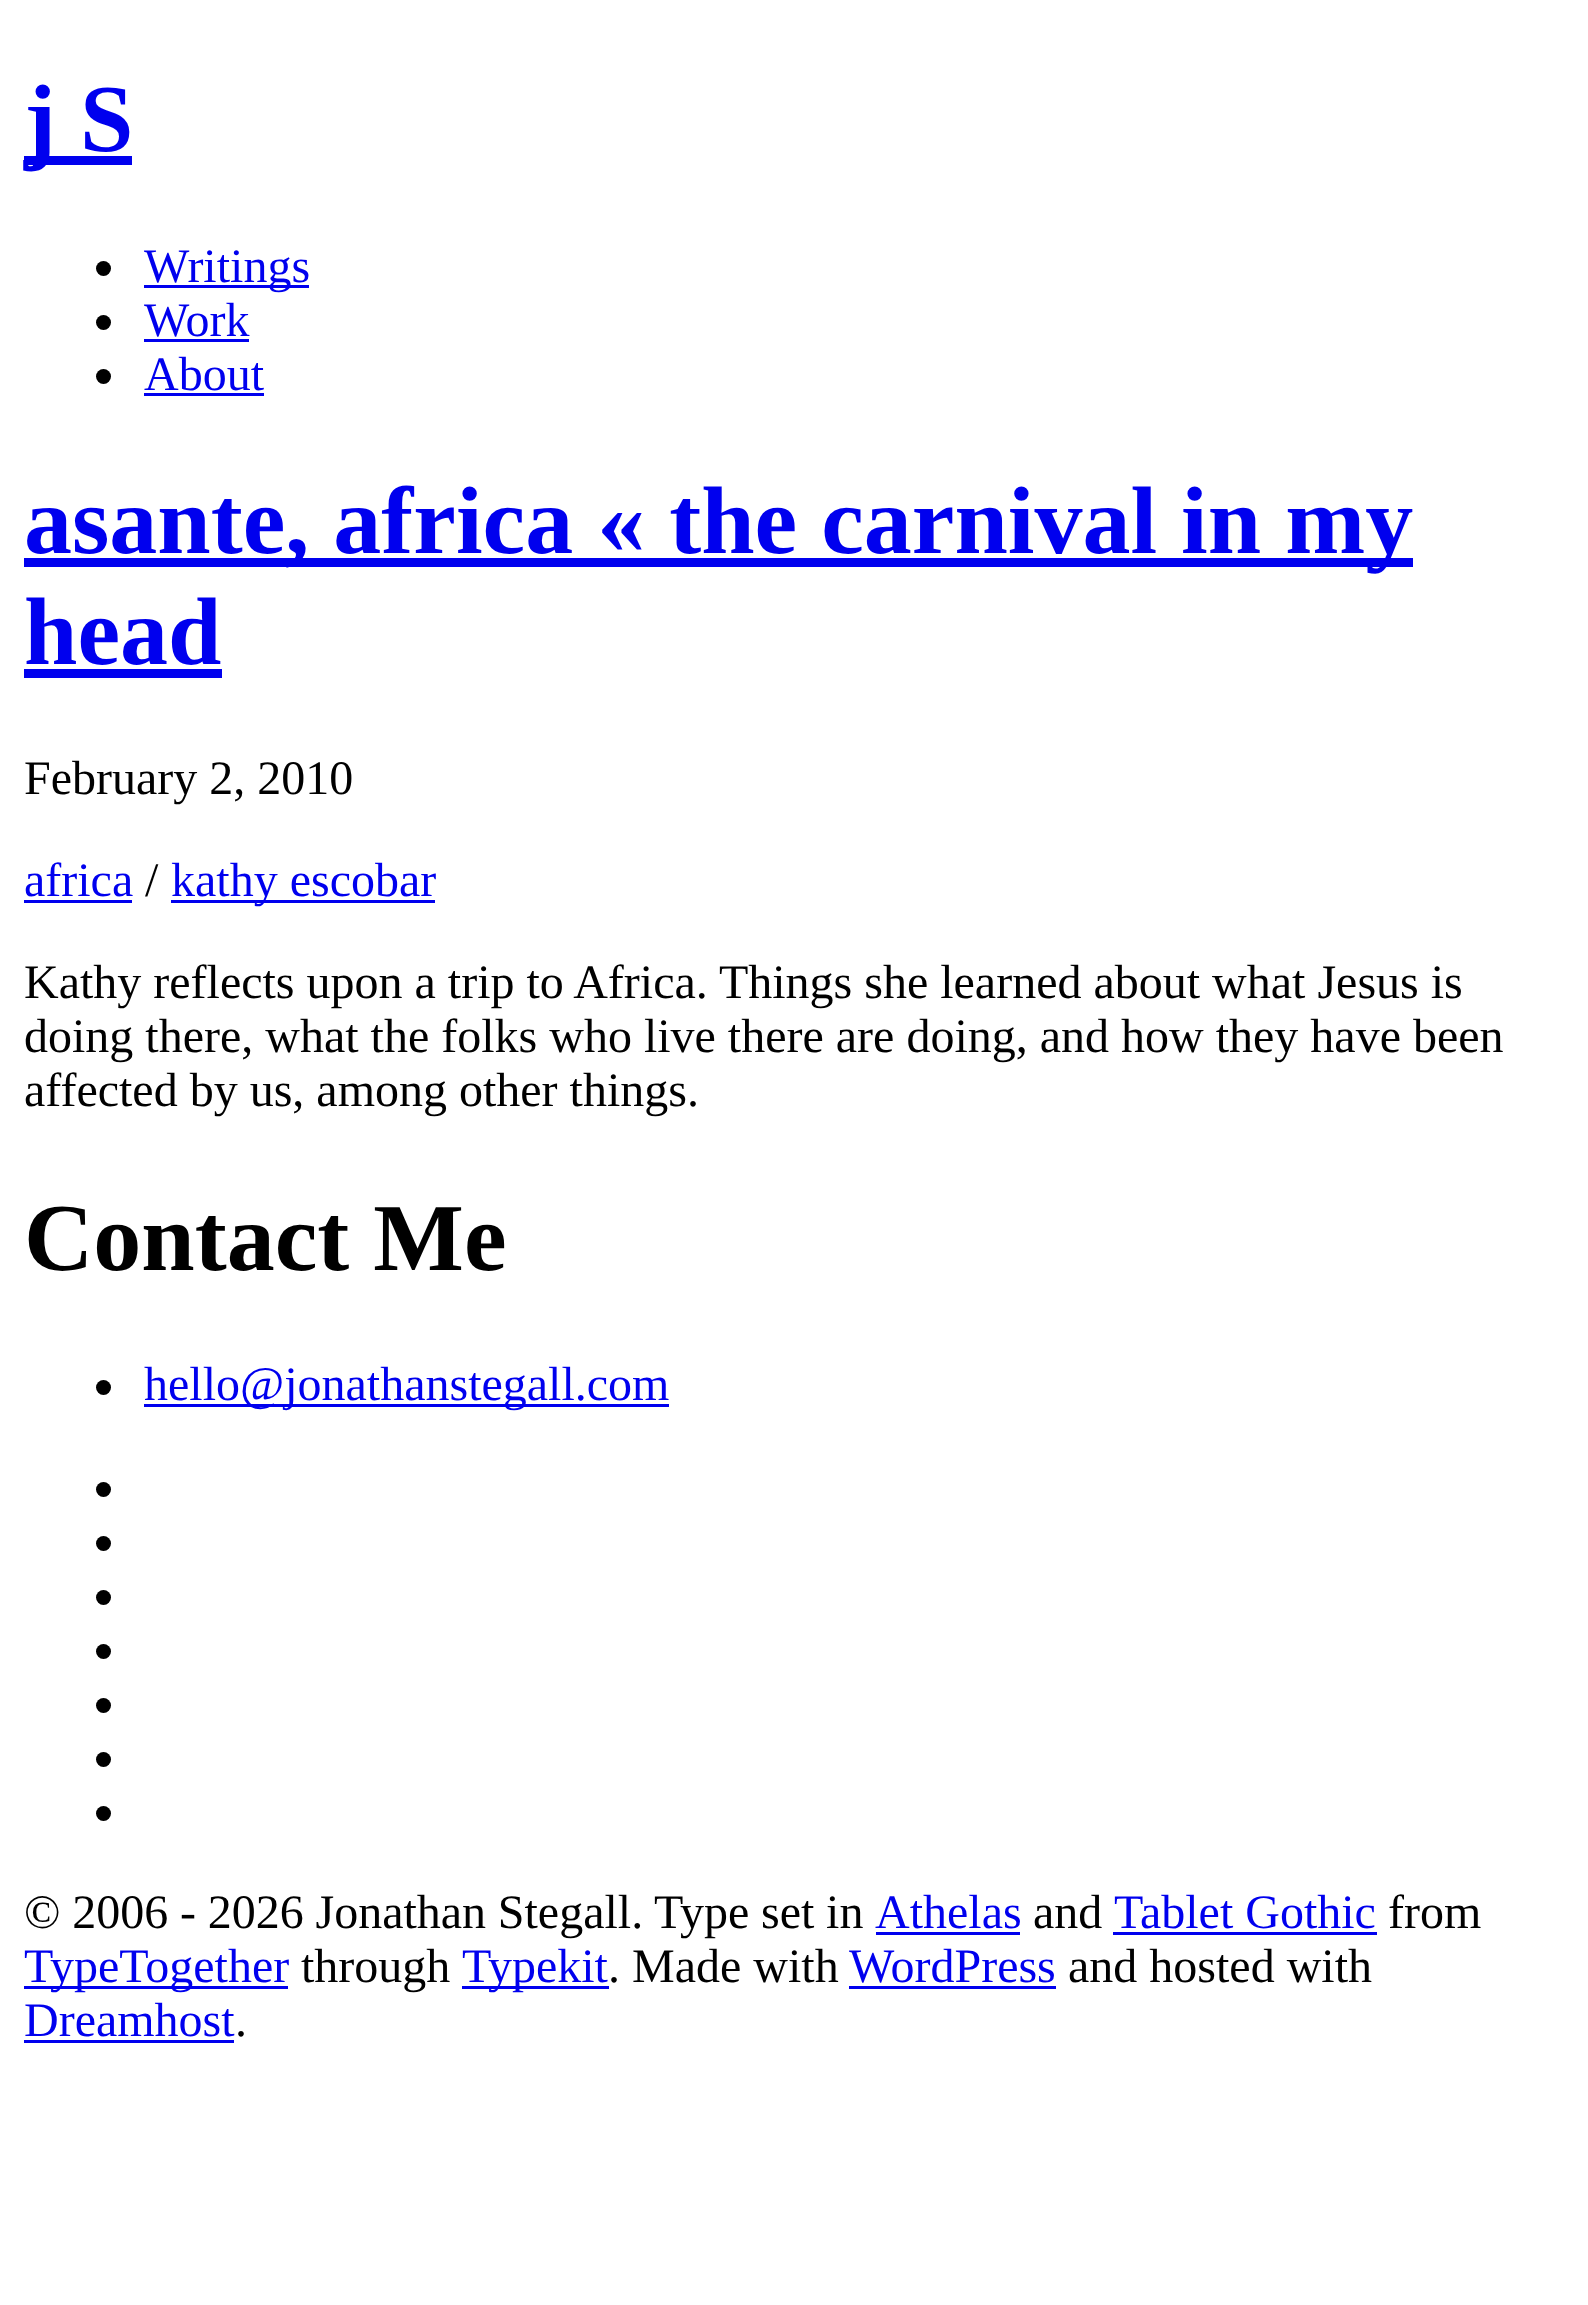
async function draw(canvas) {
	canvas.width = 1588;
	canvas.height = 2305;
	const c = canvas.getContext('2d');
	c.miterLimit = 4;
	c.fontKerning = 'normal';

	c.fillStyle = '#fff';
	c.fillRect(0, 0, 1588, 2305);
	c.fillStyle = '#00e';
	c.fillRect(24, 156, 108, 9);
	c.font = 'bold 96px Liberation Serif';
	c.fillText('j S', 24, 151);
	c.fillStyle = '#000';
	c.beginPath();
	c.arc(103.5, 268.5, 7.5, 0, 2 * Math.PI);
	c.fill();
	c.fillStyle = '#00e';
	c.fillRect(144, 285, 165, 3);
	c.font = '48px Liberation Serif';
	c.fillText('Writings', 144, 282);
	c.fillStyle = '#000';
	c.beginPath();
	c.arc(103.5, 322.5, 7.5, 0, 2 * Math.PI);
	c.fill();
	c.fillStyle = '#00e';
	c.fillText('Work', 144, 336);
	c.fillRect(144, 339, 105, 3);
	c.fillStyle = '#000';
	c.beginPath();
	c.arc(103.5, 376.5, 7.5, 0, 2 * Math.PI);
	c.fill();
	c.fillStyle = '#00e';
	c.fillText('About', 144, 390);
	c.fillRect(144, 393, 120, 3);
	c.fillRect(24, 558, 1389, 9);
	c.font = 'bold 96px Liberation Serif';
	c.fillText('asante, africa « the carnival in my', 24, 553);
	c.fillText('head', 24, 664);
	c.fillRect(24, 669, 198, 9);
	c.font = '48px Liberation Serif';
	c.fillStyle = '#000';
	c.fillText('February 2, 2010', 24, 794);
	c.fillStyle = '#00e';
	c.fillText('africa', 24, 896);
	c.fillRect(24, 900, 108, 3);
	c.fillStyle = '#000';
	c.fillText('/', 145, 896);
	c.fillStyle = '#00e';
	c.fillRect(171, 900, 264, 3);
	c.fillText('kathy escobar', 171, 896);
	c.fillStyle = '#000';
	for (const [text, x, y] of [
		['Kathy reflects upon a trip to Africa. Things she learned about what Jesus is', 24, 998],
		['doing there, what the folks who live there are doing, and how they have been', 24, 1052],
		['affected by us, among other things.', 24, 1106],
	]) {
		c.fillText(text, x, y);
	}
	c.font = 'bold 96px Liberation Serif';
	c.fillText('Contact Me', 24, 1270);
	c.beginPath();
	c.arc(103.5, 1387.5, 7.5, 0, 2 * Math.PI);
	c.fill();
	c.fillStyle = '#00e';
	c.fillRect(144, 1404, 525, 3);
	c.font = '48px Liberation Serif';
	c.fillText('hello@jonathanstegall.com', 144, 1400);
	c.fillStyle = '#000';
	c.beginPath();
	c.arc(103.5, 1489.5, 7.5, 0, 2 * Math.PI);
	c.fill();
	c.beginPath();
	c.arc(103.5, 1543.5, 7.5, 0, 2 * Math.PI);
	c.fill();
	c.beginPath();
	c.arc(103.5, 1597.5, 7.5, 0, 2 * Math.PI);
	c.fill();
	c.beginPath();
	c.arc(103.5, 1651.5, 7.5, 0, 2 * Math.PI);
	c.fill();
	c.beginPath();
	c.arc(103.5, 1705.5, 7.5, 0, 2 * Math.PI);
	c.fill();
	c.beginPath();
	c.arc(103.5, 1759.5, 7.5, 0, 2 * Math.PI);
	c.fill();
	c.beginPath();
	c.arc(103.5, 1813.5, 7.5, 0, 2 * Math.PI);
	c.fill();
	c.wordSpacing = '-0.25px';
	c.fillText('© 2006 - 2026 Jonathan Stegall. Type set in', 24, 1928);
	c.wordSpacing = '0px';
	c.fillStyle = '#00e';
	c.fillText('Athelas', 875, 1928);
	c.fillRect(876, 1932, 144, 3);
	c.fillStyle = '#000';
	c.fillText('and', 1033, 1928);
	c.fillStyle = '#00e';
	c.fillText('Tablet Gothic', 1114, 1928);
	c.fillRect(1113, 1932, 264, 3);
	c.fillStyle = '#000';
	c.fillText('from', 1388, 1928);
	c.fillStyle = '#00e';
	c.fillRect(24, 1986, 264, 3);
	c.fillText('TypeTogether', 24, 1982);
	c.fillStyle = '#000';
	c.fillText('through', 301, 1982);
	c.fillStyle = '#00e';
	c.fillRect(462, 1986, 147, 3);
	c.fillText('Typekit', 462, 1982);
	c.fillStyle = '#000';
	c.fillText('. Made with', 608, 1982);
	c.fillStyle = '#00e';
	c.fillText('WordPress', 849, 1982);
	c.fillRect(849, 1986, 207, 3);
	c.fillStyle = '#000';
	c.fillText('and hosted with', 1068, 1982);
	c.fillStyle = '#00e';
	c.fillText('Dreamhost', 24, 2036);
	c.fillRect(24, 2040, 210, 3);
	c.fillStyle = '#000';
	c.fillText('.', 235, 2036);
}

draw(document.querySelector('canvas'));
